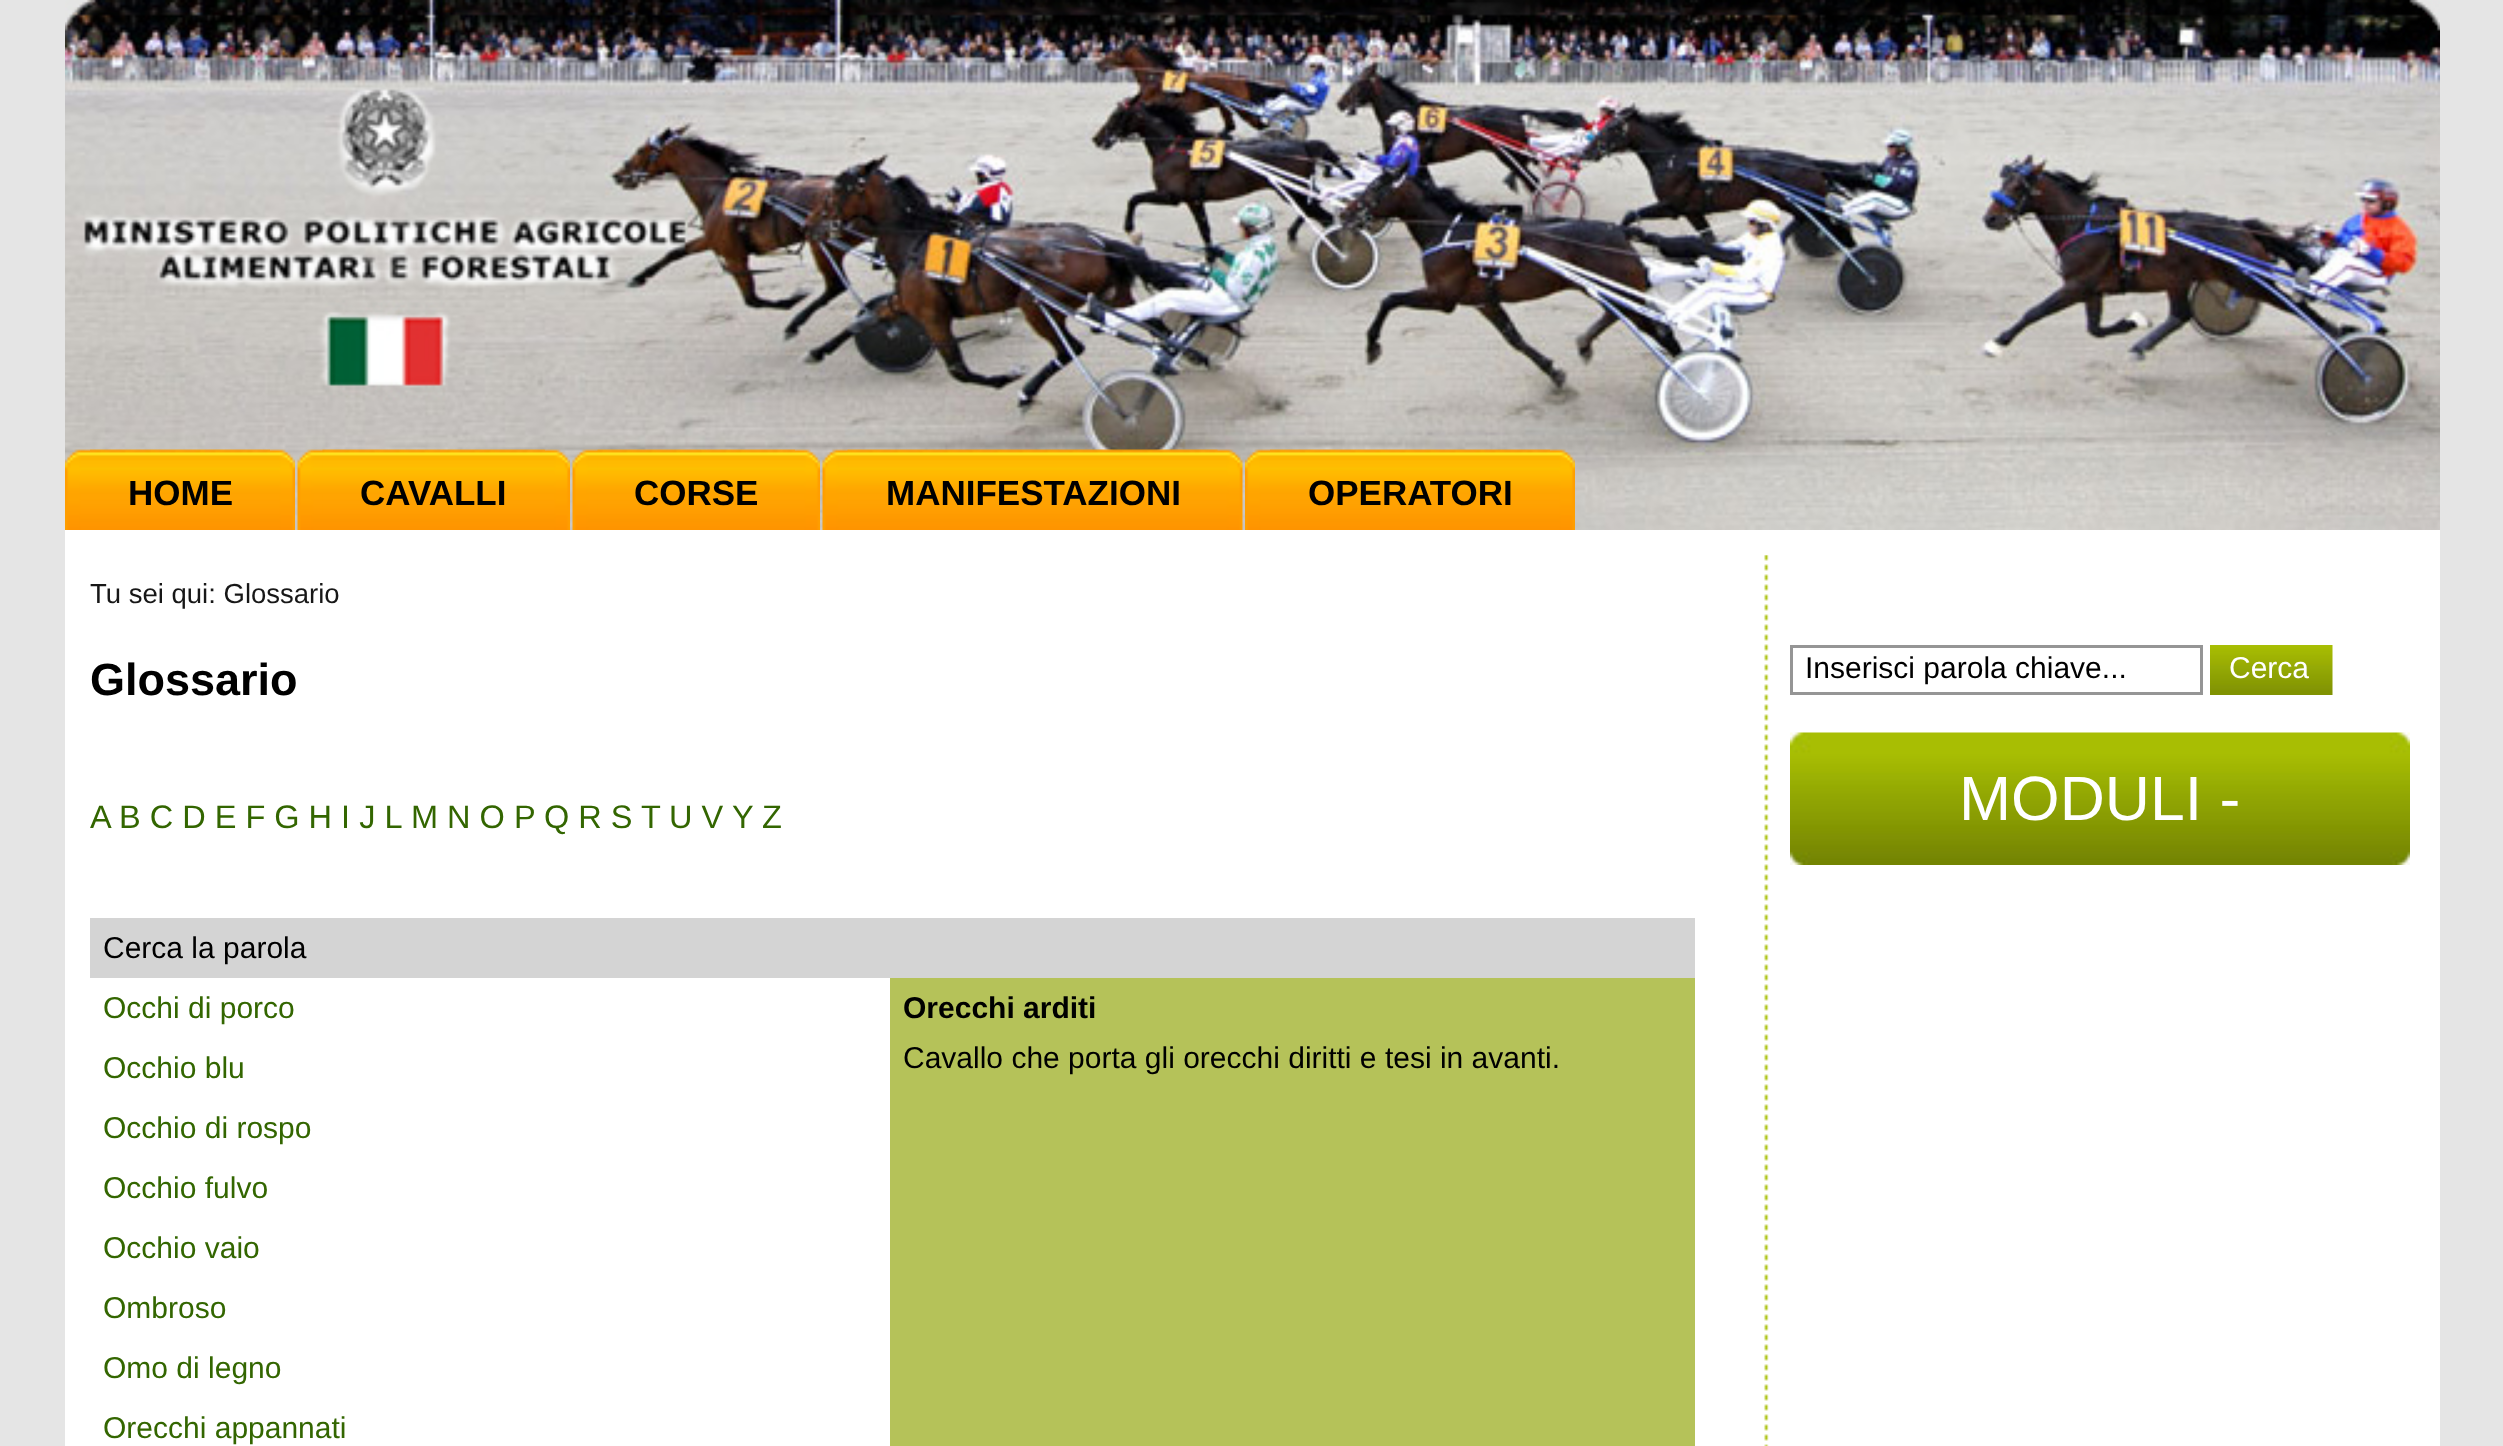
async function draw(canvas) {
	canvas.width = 2503;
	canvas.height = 1446;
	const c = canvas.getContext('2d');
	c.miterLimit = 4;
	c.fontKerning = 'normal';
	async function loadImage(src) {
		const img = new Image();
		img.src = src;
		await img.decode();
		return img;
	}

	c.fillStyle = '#e5e5e5';
	c.fillRect(0, 0, 2503, 1446);
	c.drawImage(await loadImage('img1.png'), 65, 0, 2375, 530);
	c.drawImage(await loadImage('img2.png'), 65, 449, 205, 81);
	c.drawImage(await loadImage('img3.png'), 90, 449, 205, 81);
	c.font = 'bold 35px Liberation Sans';
	c.fillStyle = '#000';
	c.fillText('HOME', 128, 505);
	c.drawImage(await loadImage('img4.png'), 297, 449, 248, 81);
	c.drawImage(await loadImage('img5.png'), 322, 449, 248, 81);
	c.fillText('CAVALLI', 360, 505);
	c.drawImage(await loadImage('img6.png'), 572, 449, 223, 81);
	c.drawImage(await loadImage('img7.png'), 597, 449, 223, 81);
	c.fillText('CORSE', 634, 505);
	c.drawImage(await loadImage('img8.png'), 822, 449, 396, 81);
	c.drawImage(await loadImage('img9.png'), 847, 449, 396, 81);
	c.fillText('MANIFESTAZIONI', 886, 505);
	c.drawImage(await loadImage('img10.png'), 1245, 449, 305, 81);
	c.drawImage(await loadImage('img11.png'), 1270, 449, 305, 81);
	c.fillText('OPERATORI', 1308, 505);
	c.fillStyle = '#fff';
	c.fillRect(65, 530, 2375, 916);
	c.drawImage(await loadImage('img12.png'), 1764, 555, 5, 891);
	c.font = '27.5px Liberation Sans';
	c.fillStyle = '#171717';
	c.fillText('Tu sei qui: Glossario', 90, 603);
	c.font = 'bold 45px Liberation Sans';
	c.fillStyle = '#000';
	c.fillText('Glossario', 90, 695);
	c.font = '32.5px Liberation Sans';
	c.fillStyle = '#360';
	for (const [text, x, y] of [
		['A', 90, 828],
		['B C D E F G H I J L', 119, 828],
		['M N O P', 411, 828],
		['Q R S', 544, 828],
		['T', 641, 828],
		['U V', 669, 828],
		['Y', 732, 828],
		['Z', 762, 828],
	]) {
		c.fillText(text, x, y);
	}
	c.fillStyle = '#d4d4d4';
	c.fillRect(90, 918, 1605, 60);
	c.font = '30px Liberation Sans';
	c.fillStyle = '#000';
	c.fillText('Cerca la parola', 103, 958);
	c.fillStyle = '#360';
	for (const [text, x, y] of [
		['Occhi di porco', 103, 1018],
		['Occhio blu', 103, 1078],
		['Occhio di rospo', 103, 1138],
		['Occhio fulvo', 103, 1198],
		['Occhio vaio', 103, 1258],
		['Ombroso', 103, 1318],
		['Omo di legno', 103, 1378],
		['Orecchi appannati', 103, 1438],
	]) {
		c.fillText(text, x, y);
	}
	c.fillStyle = '#b5c259';
	c.fillRect(890, 978, 805, 468);
	c.font = 'bold 30px Liberation Sans';
	c.fillStyle = '#000';
	c.fillText('Orecchi arditi', 903, 1018);
	c.font = '30px Liberation Sans';
	c.fillText('Cavallo che porta gli orecchi diritti e tesi in avanti.', 903, 1068);
	c.strokeStyle = '#959595';
	c.lineWidth = 3;
	c.strokeRect(1791.5, 646.5, 410, 47);
	c.fillText('Inserisci parola chiave...', 1805, 678);
	c.drawImage(await loadImage('img13.png'), 2210, 645, 123, 50);
	c.fillStyle = '#fff';
	c.fillText('Cerca', 2229, 678);
	c.drawImage(await loadImage('img14.png'), 1790, 732, 620, 133);
	c.font = '62.5px Liberation Sans';
	c.fillText('MODULI -', 1959, 820);
}

draw(document.querySelector('canvas'));
